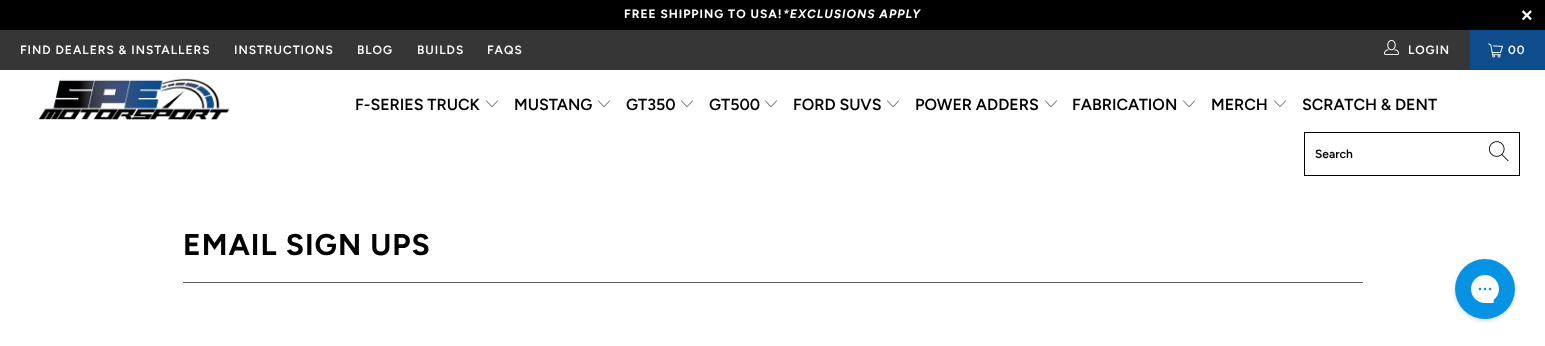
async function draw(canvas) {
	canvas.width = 1545;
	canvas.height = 346;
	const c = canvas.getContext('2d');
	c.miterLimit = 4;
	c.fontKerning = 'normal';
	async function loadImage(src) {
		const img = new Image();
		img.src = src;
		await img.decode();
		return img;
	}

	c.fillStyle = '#fff';
	c.fillRect(0, 0, 1545, 346);
	c.fillStyle = '#000';
	c.fillRect(0, 0, 1545, 30);
	c.letterSpacing = '1px';
	c.font = 'bold 12px Figtree';
	c.fillStyle = '#fff';
	c.fillText('FREE SHIPPING TO USA!', 624, 18);
	c.font = 'italic bold 12px Figtree';
	c.fillText('*EXCLUSIONS APPLY', 783, 18);
	c.font = 'bold 20px Liberation Sans';
	c.fillText('×', 1521, 22);
	c.fillStyle = '#363636';
	c.fillRect(0, 30, 1470, 40);
	c.font = '600 12px Figtree';
	c.fillStyle = '#fff';
	for (const [text, x, y] of [
		['FIND DEALERS & INSTALLERS', 20, 54],
		['INSTRUCTIONS', 234, 54],
		['BLOG', 357, 54],
		['BUILDS', 417, 54],
		['FAQS', 487, 54],
	]) {
		c.fillText(text, x, y);
	}
	c.drawImage(await loadImage('img1.png'), 1384, 39, 15, 16);
	c.fillText('LOGIN', 1408, 54);
	c.fillStyle = '#0e4c8c';
	c.fillRect(1470, 30, 75, 40);
	c.drawImage(await loadImage('img2.png'), 1488, 43, 15, 15);
	c.fillStyle = '#fff';
	c.fillText('00', 1508, 54);
	c.drawImage(await loadImage('img3.png'), 39, 78, 190, 42);
	c.letterSpacing = '0px';
	c.font = '600 16px Figtree';
	c.fillStyle = '#000';
	c.fillText('F-SERIES TRUCK', 355, 110);
	c.drawImage(await loadImage('img4.png'), 486, 100, 12, 7);
	c.fillText('MUSTANG', 514, 110);
	c.drawImage(await loadImage('img4.png'), 598, 100, 12, 7);
	c.fillText('GT350', 626, 110);
	c.drawImage(await loadImage('img4.png'), 681, 100, 12, 7);
	c.fillText('GT500', 709, 110);
	c.drawImage(await loadImage('img4.png'), 765, 100, 12, 7);
	c.fillText('FORD SUVS', 793, 110);
	c.drawImage(await loadImage('img4.png'), 887, 100, 12, 7);
	c.fillText('POWER ADDERS', 915, 110);
	c.drawImage(await loadImage('img4.png'), 1045, 100, 12, 7);
	c.fillText('FABRICATION', 1072, 110);
	c.drawImage(await loadImage('img4.png'), 1183, 100, 12, 7);
	c.fillText('MERCH', 1211, 110);
	c.drawImage(await loadImage('img4.png'), 1274, 100, 12, 7);
	c.fillText('SCRATCH & DENT', 1302, 110);
	c.strokeStyle = '#000';
	c.strokeRect(1304.5, 132.5, 215, 43);
	c.font = '600 12px Figtree';
	c.fillText('Search', 1315, 158);
	c.drawImage(await loadImage('img5.png'), 1489, 141, 20, 21);
	c.letterSpacing = '1px';
	c.font = 'bold 30px Figtree';
	c.fillText('EMAIL SIGN UPS', 183, 255);
	c.fillStyle = '#5b6066';
	c.fillRect(183, 282, 1180, 1);
	c.drawImage(await loadImage('img6.png'), 1453, 259, 64, 64);
}

draw(document.querySelector('canvas'));
